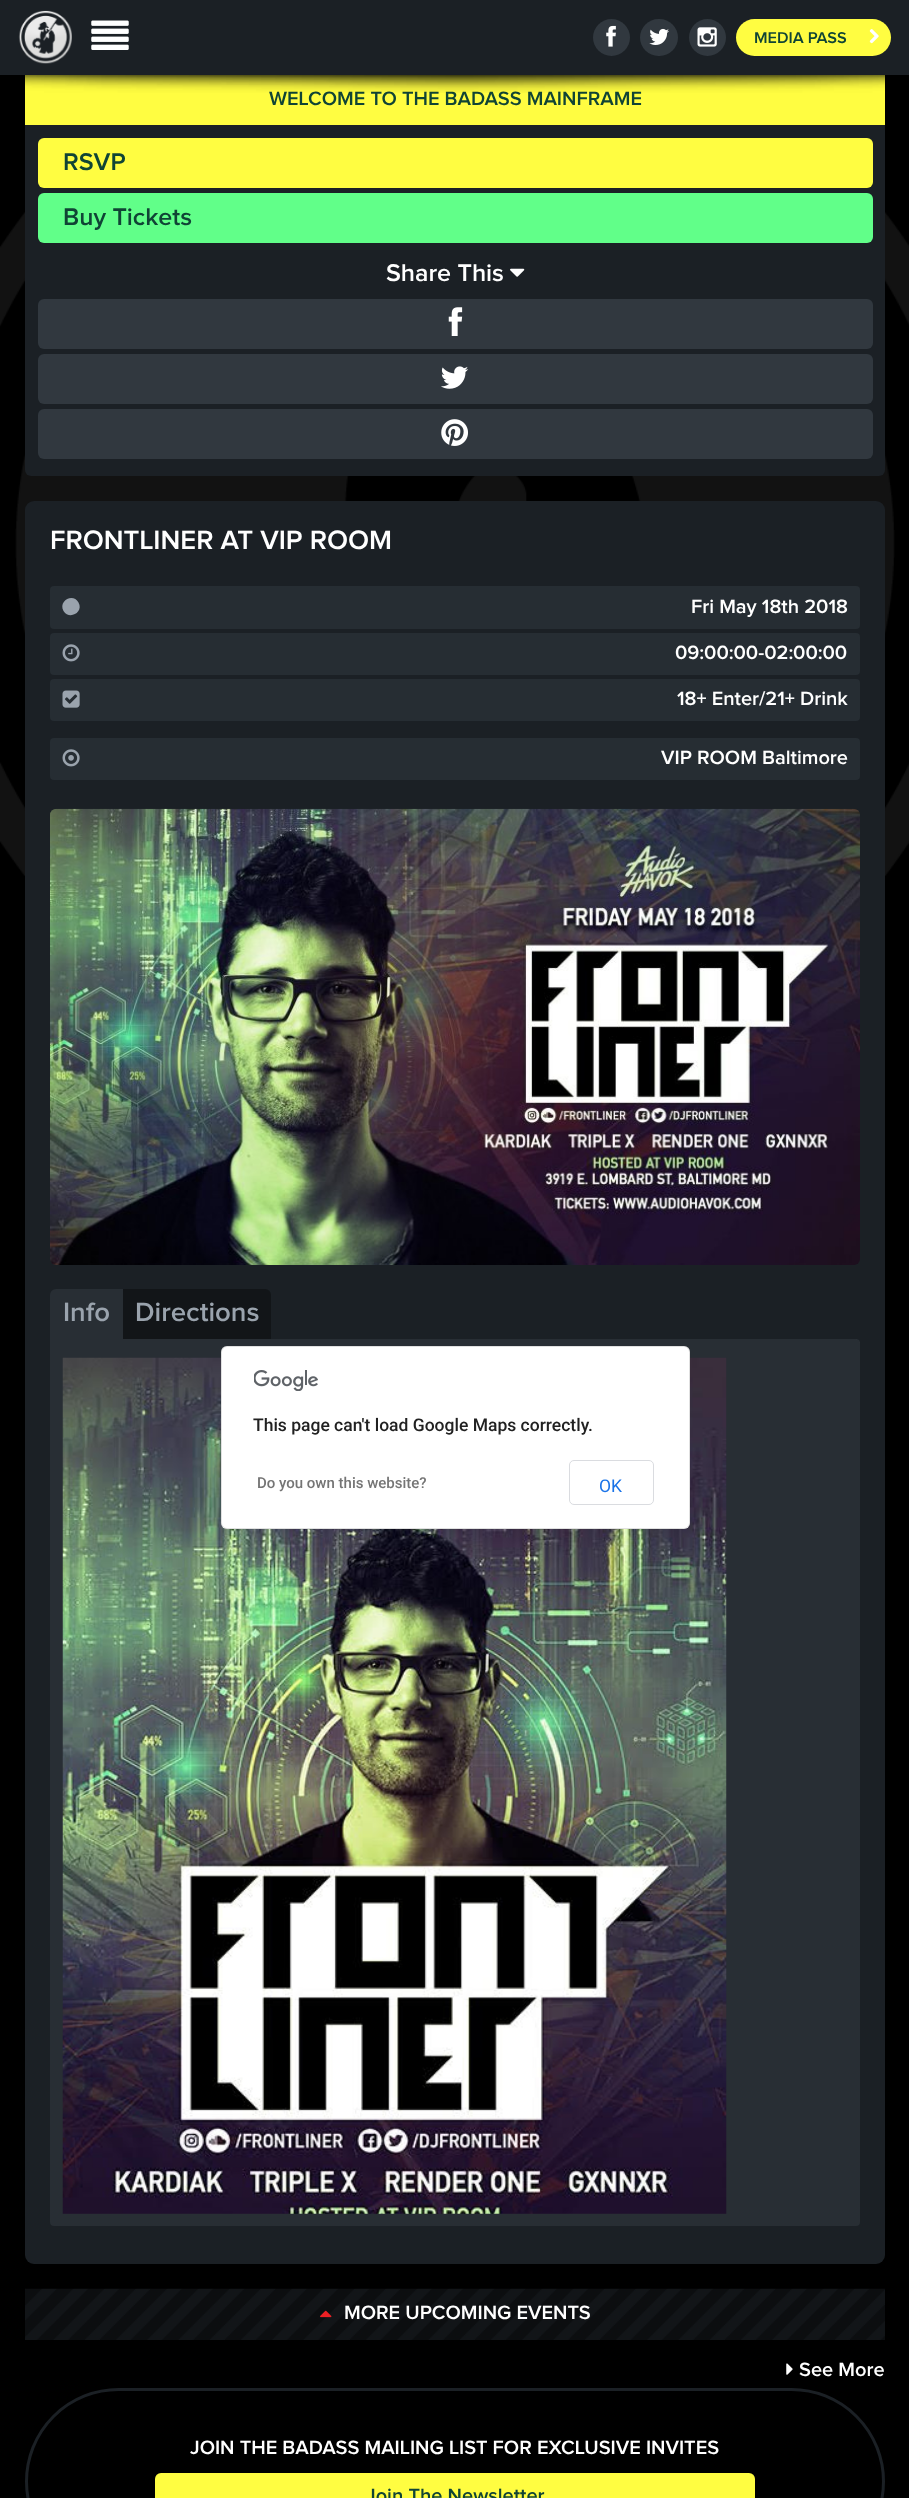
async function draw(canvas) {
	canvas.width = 909;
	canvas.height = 2498;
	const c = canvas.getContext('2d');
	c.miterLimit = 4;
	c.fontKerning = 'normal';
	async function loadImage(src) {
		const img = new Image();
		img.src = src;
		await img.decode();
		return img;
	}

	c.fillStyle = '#000';
	c.fillRect(0, 0, 909, 2498);
	c.drawImage(await loadImage('img1.png'), 0, 212, 909, 664);
	c.fillStyle = '#1b2025';
	c.fillRect(0, 0, 909, 75);
	c.drawImage(await loadImage('img2.png'), 18, 10, 54, 54);
	c.drawImage(await loadImage('img3.png'), 91, 20, 38, 30);
	c.fillStyle = '#31383f';
	c.beginPath();
	c.arc(611.5, 37.5, 18.5, 0, 2 * Math.PI);
	c.fill();
	c.drawImage(await loadImage('img4.png'), 606, 25, 10, 22);
	c.beginPath();
	c.roundRect(640, 19, 38, 37, 18.5);
	c.fill();
	c.drawImage(await loadImage('img5.png'), 649, 28, 20, 17);
	c.beginPath();
	c.arc(707.5, 37.5, 18.5, 0, 2 * Math.PI);
	c.fill();
	c.drawImage(await loadImage('img6.png'), 697, 27, 20, 20);
	c.fillStyle = '#fffd41';
	c.beginPath();
	c.roundRect(736, 19, 155, 37, 18.5);
	c.fill();
	c.font = '600 16.25px Proxima Nova';
	c.fillStyle = '#104435';
	c.fillText('MEDIA PASS', 754, 43);
	c.drawImage(await loadImage('img7.png'), 869, 29, 10, 15);
	c.fillStyle = '#fffd41';
	c.fillRect(25, 75, 860, 50);
	c.font = '600 20px Proxima Nova';
	c.fillStyle = '#104435';
	c.fillText('WELCOME TO THE BADASS MAINFRAME', 269, 105);
	c.drawImage(await loadImage('img8.png'), 25, 75, 860, 18);
	c.fillStyle = '#1b2025';
	c.beginPath();
	c.roundRect(25, 125, 860, 351, [0, 0, 6, 6]);
	c.fill();
	c.fillStyle = '#fffd41';
	c.beginPath();
	c.roundRect(38, 138, 835, 50, 6);
	c.fill();
	c.font = '600 25px Proxima Nova';
	c.fillStyle = '#104435';
	c.fillText('RSVP', 63, 170);
	c.fillStyle = '#61ff89';
	c.beginPath();
	c.roundRect(38, 193, 835, 50, 6);
	c.fill();
	c.fillStyle = '#104435';
	c.fillText('Buy Tickets', 63, 225);
	c.fillStyle = '#fff';
	c.fillText('Share This', 386, 281);
	c.drawImage(await loadImage('img9.png'), 510, 268, 15, 9);
	c.fillStyle = '#31383f';
	c.beginPath();
	c.roundRect(38, 299, 835, 50, 6);
	c.fill();
	c.drawImage(await loadImage('img10.png'), 448, 307, 15, 29);
	c.beginPath();
	c.roundRect(38, 354, 835, 50, 6);
	c.fill();
	c.drawImage(await loadImage('img11.png'), 441, 366, 28, 23);
	c.beginPath();
	c.roundRect(38, 409, 835, 50, 6);
	c.fill();
	c.drawImage(await loadImage('img12.png'), 441, 419, 27, 27);
	c.fillStyle = '#1b2025';
	c.beginPath();
	c.roundRect(25, 501, 860, 1763, 9);
	c.fill();
	c.font = '600 27.5px Proxima Nova';
	c.fillStyle = '#fff';
	c.fillText('FRONTLINER AT VIP ROOM', 50, 549);
	c.fillStyle = '#262d33';
	c.beginPath();
	c.roundRect(50, 586, 810, 43, 4);
	c.fill();
	c.fillStyle = '#9aa3ad';
	c.beginPath();
	c.moveTo(78.5, 602.5);
	c.bezierCurveTo(84, 612, 69.5, 620.5, 63.5, 611);
	c.bezierCurveTo(58, 601, 73, 592.5, 78.5, 602.5);
	c.closePath();
	c.fill();
	c.font = '600 20px Proxima Nova';
	c.fillStyle = '#fff';
	c.fillText('Fri May 18th 2018', 691, 613);
	c.fillStyle = '#262d33';
	c.beginPath();
	c.roundRect(50, 633, 810, 42, 4);
	c.fill();
	c.drawImage(await loadImage('img13.png'), 62, 644, 18, 18);
	c.fillStyle = '#fff';
	c.fillText('09:00:00-02:00:00', 675, 659);
	c.fillStyle = '#262d33';
	c.beginPath();
	c.roundRect(50, 679, 810, 42, 4);
	c.fill();
	c.drawImage(await loadImage('img14.png'), 62, 690, 18, 18);
	c.fillStyle = '#fff';
	c.fillText('18+ Enter/21+ Drink', 677, 705);
	c.fillStyle = '#262d33';
	c.beginPath();
	c.roundRect(50, 738, 810, 42, 4);
	c.fill();
	c.drawImage(await loadImage('img15.png'), 62, 749, 18, 18);
	c.fillStyle = '#fff';
	c.fillText('VIP ROOM Baltimore', 661, 764);
	c.drawImage(await loadImage('img16.png'), 50, 808, 810, 457);
	c.fillStyle = '#282e34';
	c.beginPath();
	c.roundRect(50, 1289, 73, 50, [6, 0, 0, 0]);
	c.fill();
	c.font = '600 27.5px Proxima Nova';
	c.fillStyle = '#9aa3ad';
	c.fillText('Info', 63, 1321);
	c.beginPath();
	c.roundRect(50.5, 1339.5, 809, 261, [0, 5.5, 5.5, 5.5]);
	c.strokeStyle = '#ccc';
	c.stroke();
	c.fillStyle = '#282e34';
	c.beginPath();
	c.roundRect(50, 1339, 810, 887, [0, 4, 4, 4]);
	c.fill();
	c.drawImage(await loadImage('img17.png'), 62, 1357, 665, 857);
	c.fillStyle = '#121518';
	c.beginPath();
	c.roundRect(123, 1289, 148, 50, [0, 6, 0, 0]);
	c.fill();
	c.fillStyle = '#9aa3ad';
	c.fillText('Directions', 135, 1321);
	c.fillStyle = '#fff';
	c.beginPath();
	c.roundRect(221, 1346, 469, 183, 6);
	c.fill();
	c.beginPath();
	c.roundRect(221.5, 1346.5, 468, 182, 5.5);
	c.strokeStyle = '#0000001f';
	c.stroke();
	c.drawImage(await loadImage('img18.png'), 254, 1370, 64, 21);
	c.font = '500 17.5px Roboto';
	c.fillStyle = '#212121';
	c.fillText('This page can\'t load Google Maps correctly.', 253, 1431);
	c.font = '500 15px Roboto';
	c.fillStyle = '#757575';
	c.fillText('Do you own this website?', 257, 1488);
	c.beginPath();
	c.roundRect(569.5, 1460.5, 84, 44, 4.5);
	c.strokeStyle = '#dadce0';
	c.stroke();
	c.font = '17.5px Roboto';
	c.fillStyle = '#1a73e8';
	c.fillText('OK', 599, 1492);
	c.drawImage(await loadImage('img19.png'), 25, 2288, 860, 52);
	c.drawImage(await loadImage('img20.png'), 320, 2310, 12, 8);
	c.font = '600 20px Proxima Nova';
	c.fillStyle = '#fff';
	c.fillText('MORE UPCOMING EVENTS', 344, 2319);
	c.drawImage(await loadImage('img21.png'), 786, 2363, 7, 12);
	c.fillText('See More', 799, 2376);
	c.beginPath();
	c.roundRect(26.5, 2389.5, 857, 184, 92);
	c.strokeStyle = '#1b2025';
	c.lineWidth = 3;
	c.stroke();
	c.fillText('JOIN THE BADASS MAILING LIST FOR EXCLUSIVE INVITES', 190, 2454);
	c.fillStyle = '#fffd41';
	c.beginPath();
	c.roundRect(155, 2473, 600, 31, 6);
	c.fill();
	c.fillStyle = '#104435';
	c.fillText('Join The Newsletter', 366, 2502);
}

draw(document.querySelector('canvas'));
